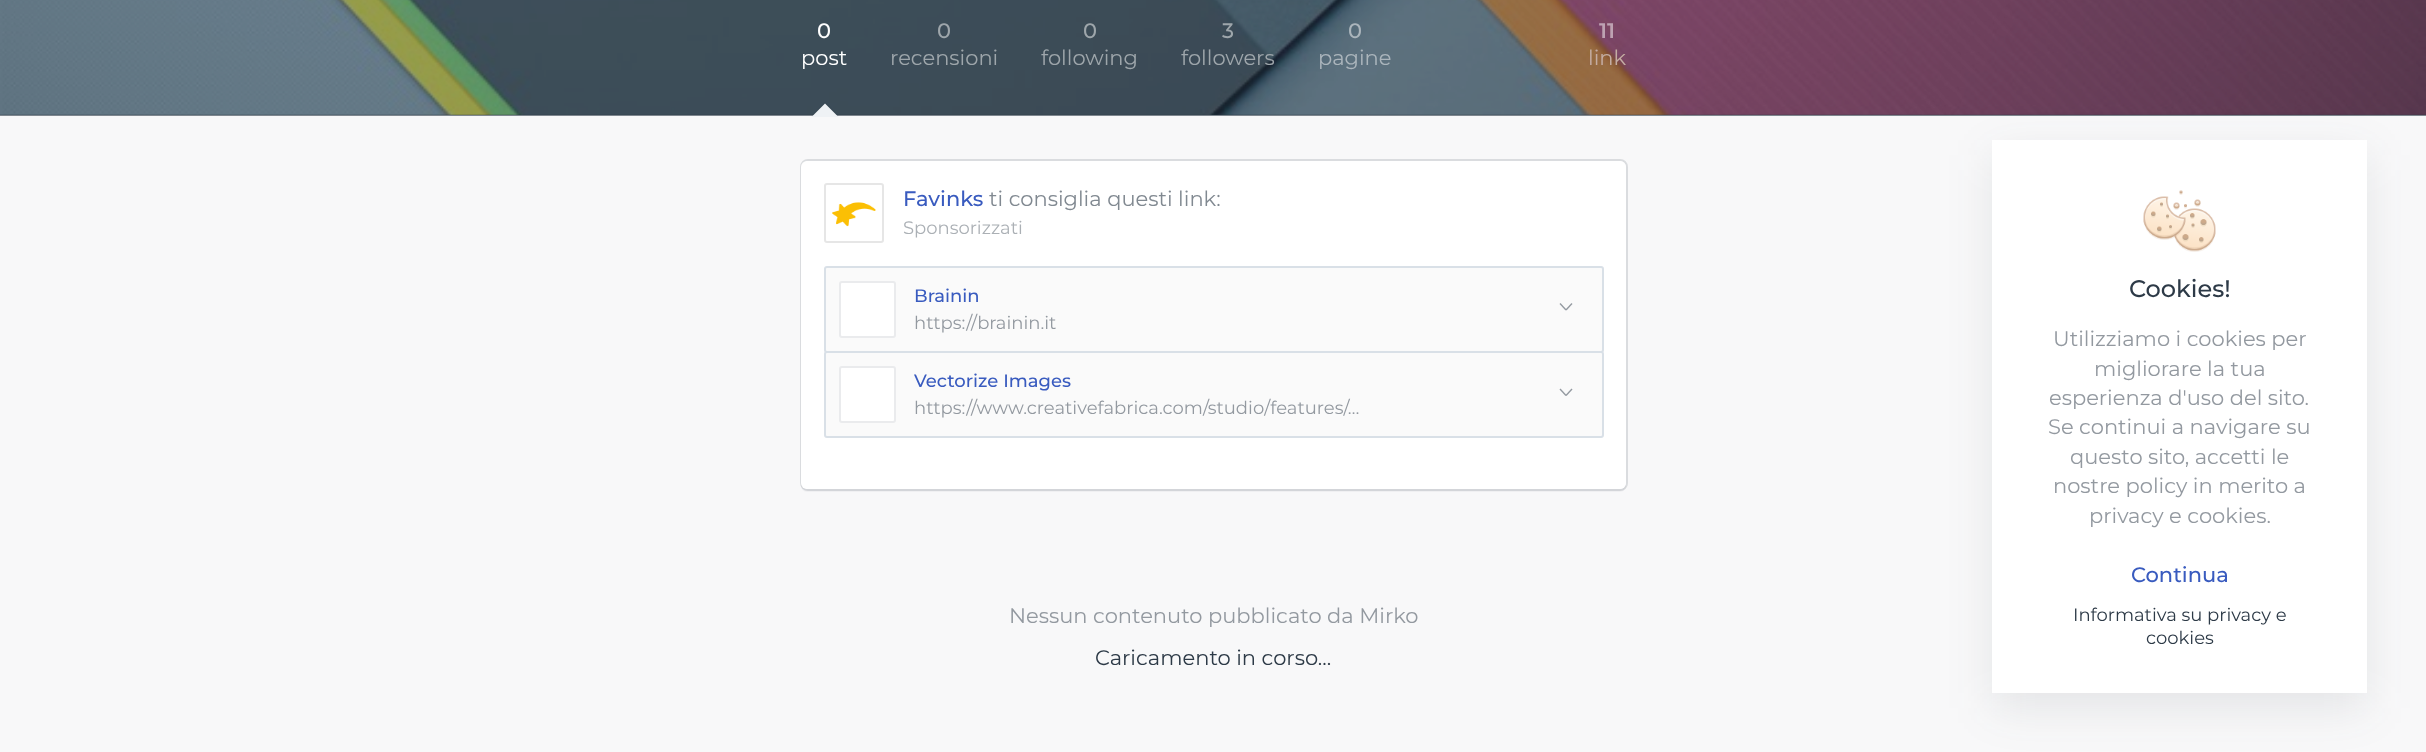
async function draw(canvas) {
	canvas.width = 2426;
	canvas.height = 752;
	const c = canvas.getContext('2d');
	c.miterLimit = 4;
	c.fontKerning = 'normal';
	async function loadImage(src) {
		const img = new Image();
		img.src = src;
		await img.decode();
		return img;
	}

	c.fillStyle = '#f8f8f9';
	c.fillRect(0, 0, 2426, 752);
	c.fillStyle = '#9399a0';
	c.fillRect(0, 115, 2426, 1);
	c.drawImage(await loadImage('img1.png'), 0, 0, 2426, 115);
	c.fillStyle = '#2d3a4733';
	c.fillRect(0, 114, 2426, 2);
	c.font = '500 21px Montserrat';
	c.fillStyle = '#fff';
	c.fillText('0', 817, 38);
	c.font = '21px Montserrat';
	c.fillText('post', 801, 65);
	c.fillStyle = '#2d3a4740';
	c.beginPath();
	c.moveTo(838.5, 115.5);
	c.lineTo(811.5, 115.5);
	c.lineTo(825, 102);
	c.closePath();
	c.fill();
	c.fillStyle = '#eff2f5';
	c.beginPath();
	c.moveTo(838.5, 117);
	c.lineTo(811.5, 117);
	c.lineTo(825, 103.5);
	c.closePath();
	c.fill();
	c.font = '500 21px Montserrat';
	c.fillStyle = '#9ea6ab';
	c.fillText('0', 937, 38);
	c.font = '21px Montserrat';
	c.fillText('recensioni', 890, 65);
	c.font = '500 21px Montserrat';
	c.fillText('0', 1083, 38);
	c.font = '21px Montserrat';
	c.fillText('following', 1041, 65);
	c.font = '500 21px Montserrat';
	c.fillText('3', 1222, 38);
	c.font = '21px Montserrat';
	c.fillText('followers', 1181, 65);
	c.font = '500 21px Montserrat';
	c.fillStyle = '#abb5bc';
	c.fillText('0', 1348, 38);
	c.font = '21px Montserrat';
	c.fillText('pagine', 1318, 65);
	c.font = '600 21px Montserrat';
	c.fillStyle = '#bda2b2';
	c.fillText('11', 1599, 38);
	c.font = '21px Montserrat';
	c.fillStyle = '#c4ada3';
	c.fillText('link', 1588, 65);
	c.fillStyle = '#f0f0f2';
	c.beginPath();
	c.moveTo(801, 483);
	c.lineTo(801, 486);
	c.bezierCurveTo(801, 489, 804, 492, 807, 492);
	c.lineTo(1620, 492);
	c.bezierCurveTo(1623, 492, 1626, 489, 1626, 486);
	c.lineTo(1626, 483);
	c.bezierCurveTo(1626, 486, 1623, 489, 1620, 489);
	c.lineTo(807, 489);
	c.bezierCurveTo(804, 489, 801, 486, 801, 483);
	c.closePath();
	c.fill();
	c.beginPath();
	c.roundRect(801, 160, 826, 330, 7);
	c.strokeStyle = '#2d3a4726';
	c.lineWidth = 2;
	c.stroke();
	c.fillStyle = '#fff';
	c.beginPath();
	c.roundRect(801, 161, 825, 328, 6);
	c.fill();
	c.drawImage(await loadImage('img2.png'), 832, 202, 44, 25);
	c.beginPath();
	c.roundRect(825, 184, 58, 58, 2);
	c.strokeStyle = '#e6e6e6';
	c.stroke();
	c.font = '500 21px Montserrat';
	c.fillStyle = '#395bbf';
	c.fillText('Favinks', 903, 206);
	c.font = '21px Montserrat';
	c.fillStyle = '#818991';
	c.fillText('ti consiglia questi link:', 989, 206);
	c.font = '18px Montserrat';
	c.fillStyle = '#abb0b5';
	c.fillText('Sponsorizzati', 903, 234);
	c.fillStyle = '#fafafa';
	c.beginPath();
	c.roundRect(825, 267, 778, 85, 2);
	c.fill();
	c.strokeStyle = '#d9e0e7';
	c.stroke();
	c.fillStyle = '#fff';
	c.beginPath();
	c.roundRect(840, 282, 55, 55, 2);
	c.fill();
	c.strokeStyle = '#eaebed';
	c.stroke();
	c.font = '500 18px Montserrat';
	c.fillStyle = '#395bbf';
	c.fillText('Brainin', 914, 302);
	c.font = '18px Montserrat';
	c.fillStyle = '#9399a0';
	c.fillText('https://brainin.it', 914, 329);
	c.fillStyle = '#949aa1';
	c.beginPath();
	c.moveTo(1560.5, 303);
	c.lineTo(1566.5, 309.5);
	c.lineTo(1565.5, 310.5);
	c.lineTo(1559.5, 304);
	c.closePath();
	c.fill();
	c.beginPath();
	c.moveTo(1565.5, 309.5);
	c.lineTo(1571.5, 303);
	c.lineTo(1572.5, 304);
	c.lineTo(1566.5, 310.5);
	c.closePath();
	c.fill();
	c.fillStyle = '#fafafa';
	c.beginPath();
	c.roundRect(825, 352, 778, 85, 2);
	c.fill();
	c.strokeStyle = '#d9e0e7';
	c.stroke();
	c.fillStyle = '#fff';
	c.beginPath();
	c.roundRect(840, 367, 55, 55, 2);
	c.fill();
	c.strokeStyle = '#eaebed';
	c.stroke();
	c.font = '500 18px Montserrat';
	c.fillStyle = '#395bbf';
	c.fillText('Vectorize Images', 914, 387);
	c.font = '18px Montserrat';
	c.fillStyle = '#9399a0';
	c.fillText('https://www.creativefabrica.com/studio/features/…', 914, 414);
	c.fillStyle = '#949aa1';
	c.beginPath();
	c.moveTo(1560.5, 388.5);
	c.lineTo(1566.5, 395);
	c.lineTo(1565.5, 396);
	c.lineTo(1559.5, 389.5);
	c.closePath();
	c.fill();
	c.beginPath();
	c.moveTo(1565.5, 395);
	c.lineTo(1571.5, 388.5);
	c.lineTo(1572.5, 389.5);
	c.lineTo(1566.5, 396);
	c.closePath();
	c.fill();
	c.font = '21px Montserrat';
	c.fillStyle = '#9399a0';
	c.fillText('Nessun contenuto pubblicato da Mirko', 1009, 623);
	c.fillStyle = '#2d3a47';
	c.fillText('Caricamento in corso...', 1095, 665);
	c.fillStyle = '#2d3a471a';
	c.filter = 'blur(22.5px)';
	c.beginPath();
	c.rect(1992, 155, 375, 553);
	c.fill();
	c.filter = 'none';
	c.fillStyle = '#fff';
	c.fillRect(1992, 140, 375, 553);
	c.drawImage(await loadImage('img3.png'), 2143, 190, 73, 62);
	c.font = '500 24px Montserrat';
	c.fillStyle = '#2d3a47';
	c.fillText('Cookies!', 2129, 297);
	c.font = '21px Montserrat';
	c.fillStyle = '#9399a0';
	for (const [text, x, y] of [
		['Utilizziamo i cookies per', 2053, 346],
		['migliorare la tua', 2094, 376],
		['esperienza d\'uso del sito.', 2049, 405],
		['Se continui a navigare su', 2048, 434],
		['questo sito, accetti le', 2070, 464],
		['nostre policy in merito a', 2053, 493],
		['privacy e cookies.', 2089, 523],
	]) {
		c.fillText(text, x, y);
	}
	c.font = '500 21px Montserrat';
	c.fillStyle = '#395bbf';
	c.fillText('Continua', 2131, 582);
	c.font = '18px Montserrat';
	c.fillStyle = '#2d3a47';
	c.fillText('Informativa su privacy e', 2073, 621);
	c.fillText('cookies', 2146, 644);
}

draw(document.querySelector('canvas'));
